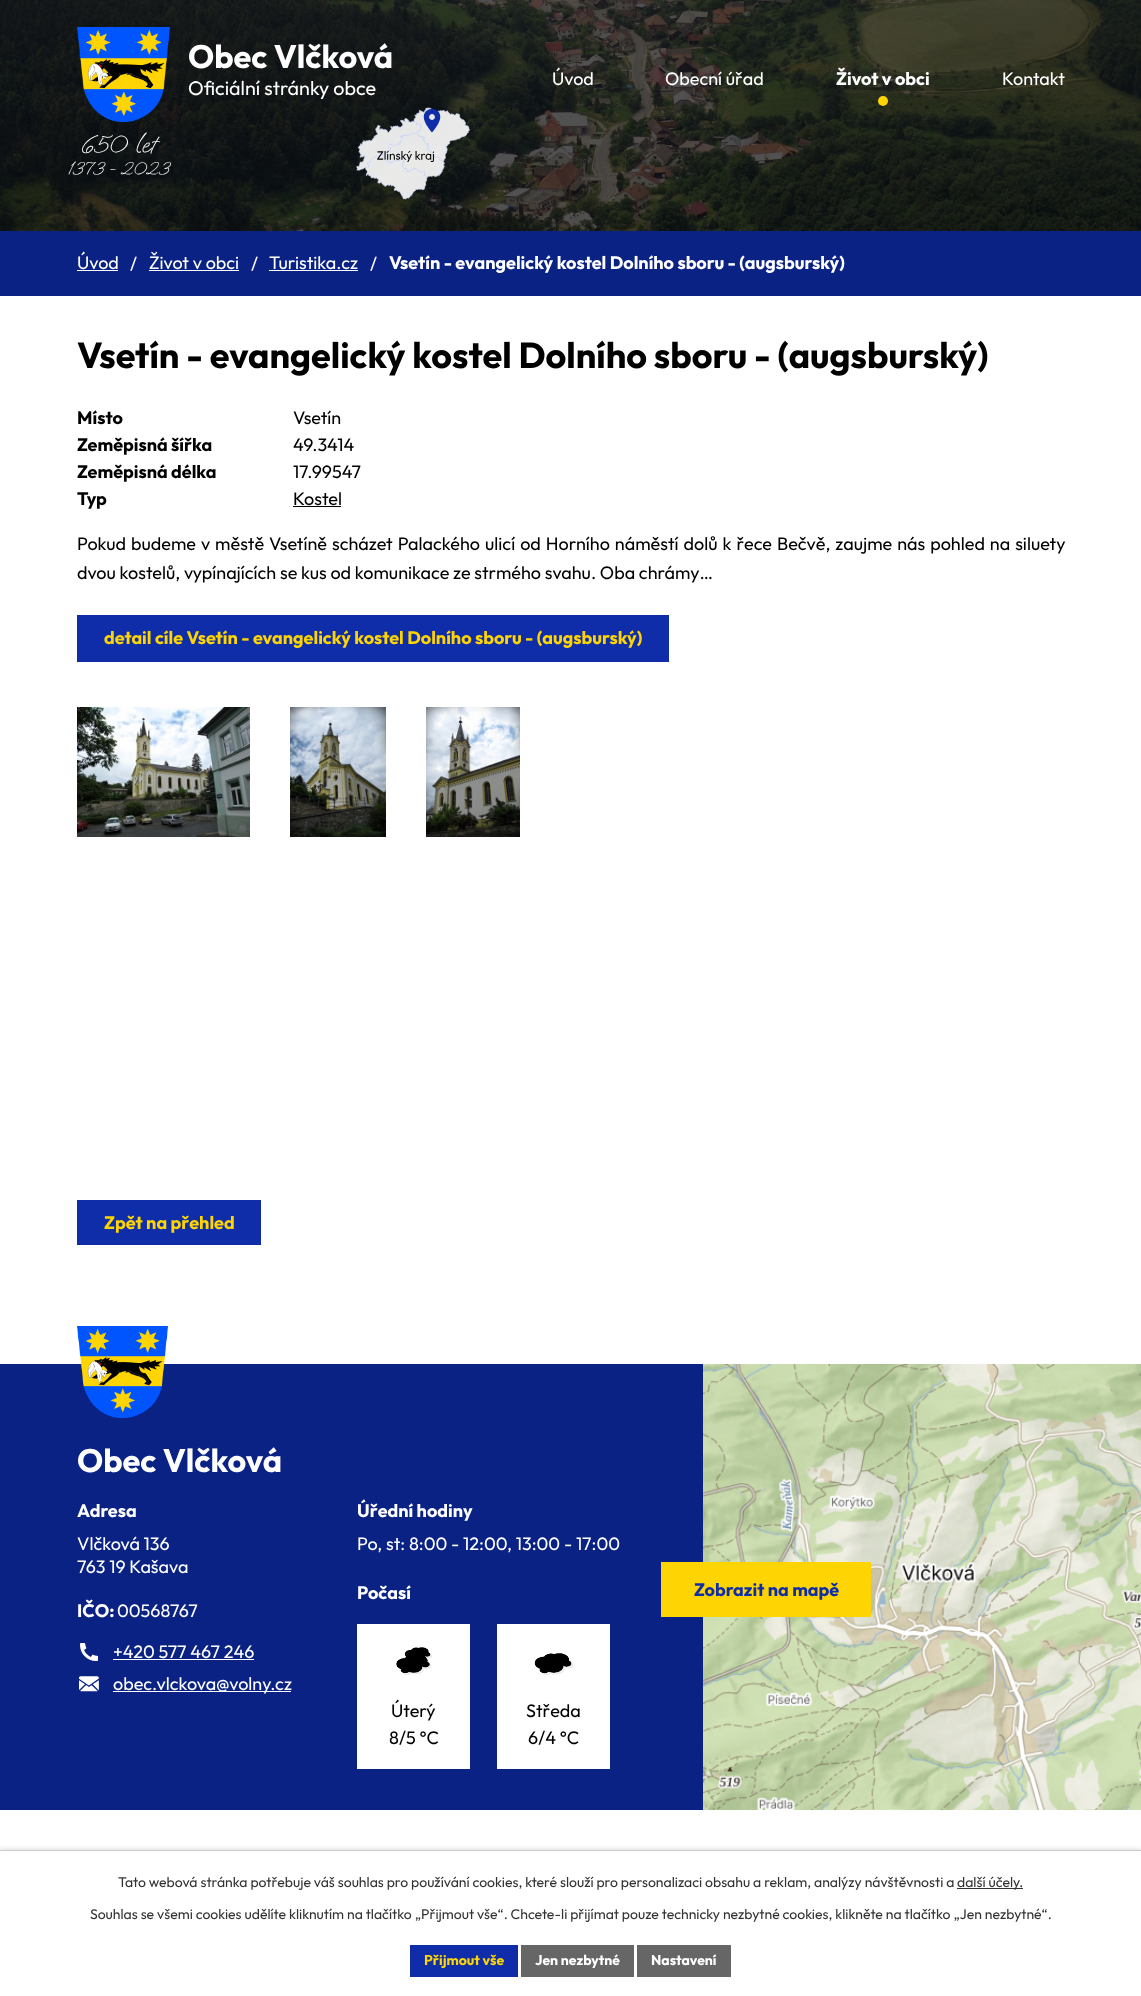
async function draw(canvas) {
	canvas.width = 1141;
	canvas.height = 1996;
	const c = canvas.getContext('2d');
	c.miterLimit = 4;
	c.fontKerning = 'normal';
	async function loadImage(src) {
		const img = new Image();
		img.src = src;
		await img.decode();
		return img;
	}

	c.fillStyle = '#fff';
	c.fillRect(0, 0, 1141, 1996);
	c.drawImage(await loadImage('img1.png'), 0, 0, 1141, 231);
	c.font = 'bold 32.5px Outfit';
	c.fillText('Obec Vlčková', 188, 68);
	c.font = '19.75px Outfit';
	c.fillText('Oficiální stránky obce', 188, 95);
	c.drawImage(await loadImage('img2.png'), 77, 27, 93, 95);
	c.font = '25px Oooh Baby';
	c.fillText('650 let', 81, 152);
	c.font = '18px Oooh Baby';
	c.fillText('1373 - 2023', 68, 174);
	c.drawImage(await loadImage('img3.png'), 356, 107, 114, 93);
	c.font = '18px Outfit';
	c.fillText('Úvod', 552, 85);
	c.fillText('Obecní úřad', 665, 85);
	c.font = 'bold 18px Outfit';
	c.fillText('Život v obci', 836, 85);
	c.fillStyle = '#fed403';
	c.beginPath();
	c.arc(883, 101, 5, 0, 2 * Math.PI);
	c.fill();
	c.font = '18px Outfit';
	c.fillStyle = '#fff';
	c.fillText('Kontakt', 1002, 85);
	c.fillStyle = '#092283';
	c.fillRect(0, 231, 1141, 65);
	c.fillStyle = '#fff';
	c.fillText('Úvod', 77, 269);
	c.fillRect(77, 270, 41, 1);
	c.fillText('/', 130, 270);
	c.fillText('Život v obci', 149, 269);
	c.fillRect(149, 270, 90, 1);
	c.fillText('/', 251, 270);
	c.fillText('Turistika.cz', 269, 269);
	c.fillRect(269, 270, 89, 1);
	c.fillText('/', 370, 270);
	c.font = 'bold 18px Outfit';
	c.fillText('Vsetín - evangelický kostel Dolního sboru - (augsburský)', 389, 269);
	c.font = 'bold 36px Outfit';
	c.fillStyle = '#000';
	c.fillText('Vsetín - evangelický kostel Dolního sboru - (augsburský)', 77, 368);
	c.font = 'bold 18px Outfit';
	c.fillText('Místo', 77, 424);
	c.font = '18px Outfit';
	c.fillText('Vsetín', 293, 424);
	c.font = 'bold 18px Outfit';
	c.fillText('Zeměpisná šířka', 77, 451);
	c.font = '18px Outfit';
	c.fillText('49.3414', 293, 451);
	c.font = 'bold 18px Outfit';
	c.fillText('Zeměpisná délka', 77, 478);
	c.font = '18px Outfit';
	c.fillText('17.99547', 293, 478);
	c.font = 'bold 18px Outfit';
	c.fillText('Typ', 77, 505);
	c.font = '18px Outfit';
	c.fillText('Kostel', 293, 505);
	c.fillRect(293, 506, 48, 1);
	c.wordSpacing = '1.25px';
	c.fillText('Pokud budeme v městě Vsetíně scházet Palackého ulicí od Horního náměstí dolů k řece Bečvě, zaujme nás pohled na siluety', 77, 550);
	c.wordSpacing = '0px';
	c.fillText('dvou kostelů, vypínajících se kus od komunikace ze strmého svahu. Oba chrámy…', 77, 579);
	c.fillStyle = '#0f2da9';
	c.fillRect(77, 615, 592, 47);
	c.font = 'bold 18px Outfit';
	c.fillStyle = '#fed403';
	c.fillText('detail cíle Vsetín - evangelický kostel Dolního sboru - (augsburský)', 104, 644);
	c.drawImage(await loadImage('img4.png'), 77, 707, 173, 130);
	c.drawImage(await loadImage('img5.png'), 290, 707, 96, 130);
	c.drawImage(await loadImage('img6.png'), 426, 707, 94, 130);
	c.fillStyle = '#0f2da9';
	c.fillRect(77, 1200, 184, 45);
	c.fillStyle = '#fed403';
	c.fillText('Zpět na přehled', 104, 1229);
	c.fillStyle = '#092283';
	c.fillRect(0, 1364, 703, 446);
	c.drawImage(await loadImage('img7.png'), 77, 1326, 91, 92);
	c.font = 'bold 32.5px Outfit';
	c.fillStyle = '#fff';
	c.fillText('Obec Vlčková', 77, 1472);
	c.font = 'bold 18px Outfit';
	c.fillText('Adresa', 77, 1517);
	c.font = '18px Outfit';
	c.fillText('Vlčková 136', 77, 1550);
	c.fillText('763 19 Kašava', 77, 1573);
	c.font = 'bold 18px Outfit';
	c.fillText('IČO:', 77, 1617);
	c.font = '18px Outfit';
	c.fillText('00568767', 117, 1617);
	c.drawImage(await loadImage('img8.png'), 80, 1643, 18, 18);
	c.fillText('+420 577 467 246', 113, 1658);
	c.fillRect(113, 1659, 141, 1);
	c.drawImage(await loadImage('img9.png'), 79, 1676, 20, 16);
	c.fillRect(113, 1691, 178, 1);
	c.fillText('obec.vlckova@volny.cz', 113, 1690);
	c.font = 'bold 18px Outfit';
	c.fillText('Úřední hodiny', 357, 1517);
	c.font = '18px Outfit';
	c.fillText('Po, st: 8:00 - 12:00, 13:00 - 17:00', 357, 1550);
	c.font = 'bold 18px Outfit';
	c.fillText('Počasí', 357, 1599);
	c.fillRect(357, 1624, 113, 145);
	c.drawImage(await loadImage('img10.png'), 396, 1647, 36, 28);
	c.font = '18px Outfit';
	c.fillStyle = '#000';
	c.fillText('Úterý', 391, 1717);
	c.fillText('8/5 °C', 389, 1744);
	c.fillStyle = '#fff';
	c.fillRect(497, 1624, 113, 145);
	c.drawImage(await loadImage('img11.png'), 534, 1653, 39, 22);
	c.fillStyle = '#000';
	c.fillText('Středa', 526, 1717);
	c.fillText('6/4 °C', 528, 1744);
	c.drawImage(await loadImage('img12.png'), 703, 1364, 438, 446);
	c.fillStyle = '#fed403';
	c.fillRect(661, 1562, 210, 55);
	c.font = 'bold 18px Outfit';
	c.fillStyle = '#0f2da9';
	c.fillText('Zobrazit na mapě', 694, 1596);
	c.fillStyle = '#00000033';
	c.filter = 'blur(2.5px)';
	c.beginPath();
	c.rect(0, 1850, 1141, 146);
	c.fill();
	c.filter = 'none';
	c.fillStyle = '#fff';
	c.fillRect(0, 1851, 1141, 145);
	c.fillStyle = '#ccc';
	c.fillRect(0, 1850, 1141, 1);
	c.font = '14px Outfit';
	c.fillStyle = '#333';
	c.fillText('Tato webová stránka potřebuje váš souhlas pro používání cookies, které slouží pro personalizaci obsahu a reklam, analýzy návštěvnosti a', 118, 1887);
	c.fillRect(957, 1888, 66, 1);
	c.fillText('další účely.', 957, 1887);
	c.fillText('Souhlas se všemi cookies udělíte kliknutím na tlačítko „Přijmout vše“. Chcete-li přijímat pouze technicky nezbytné cookies, klikněte na tlačítko „Jen nezbytné“.', 90, 1919);
	c.fillStyle = '#0f2da9';
	c.fillRect(410, 1945, 108, 32);
	c.font = 'bold 14px Outfit';
	c.fillStyle = '#fed403';
	c.fillText('Přijmout vše', 424, 1965);
	c.fillStyle = '#666';
	c.fillRect(521, 1945, 113, 32);
	c.fillStyle = '#fff';
	c.fillText('Jen nezbytné', 535, 1965);
	c.fillStyle = '#666';
	c.fillRect(637, 1945, 94, 32);
	c.fillStyle = '#fff';
	c.fillText('Nastavení', 651, 1965);
}

draw(document.querySelector('canvas'));
